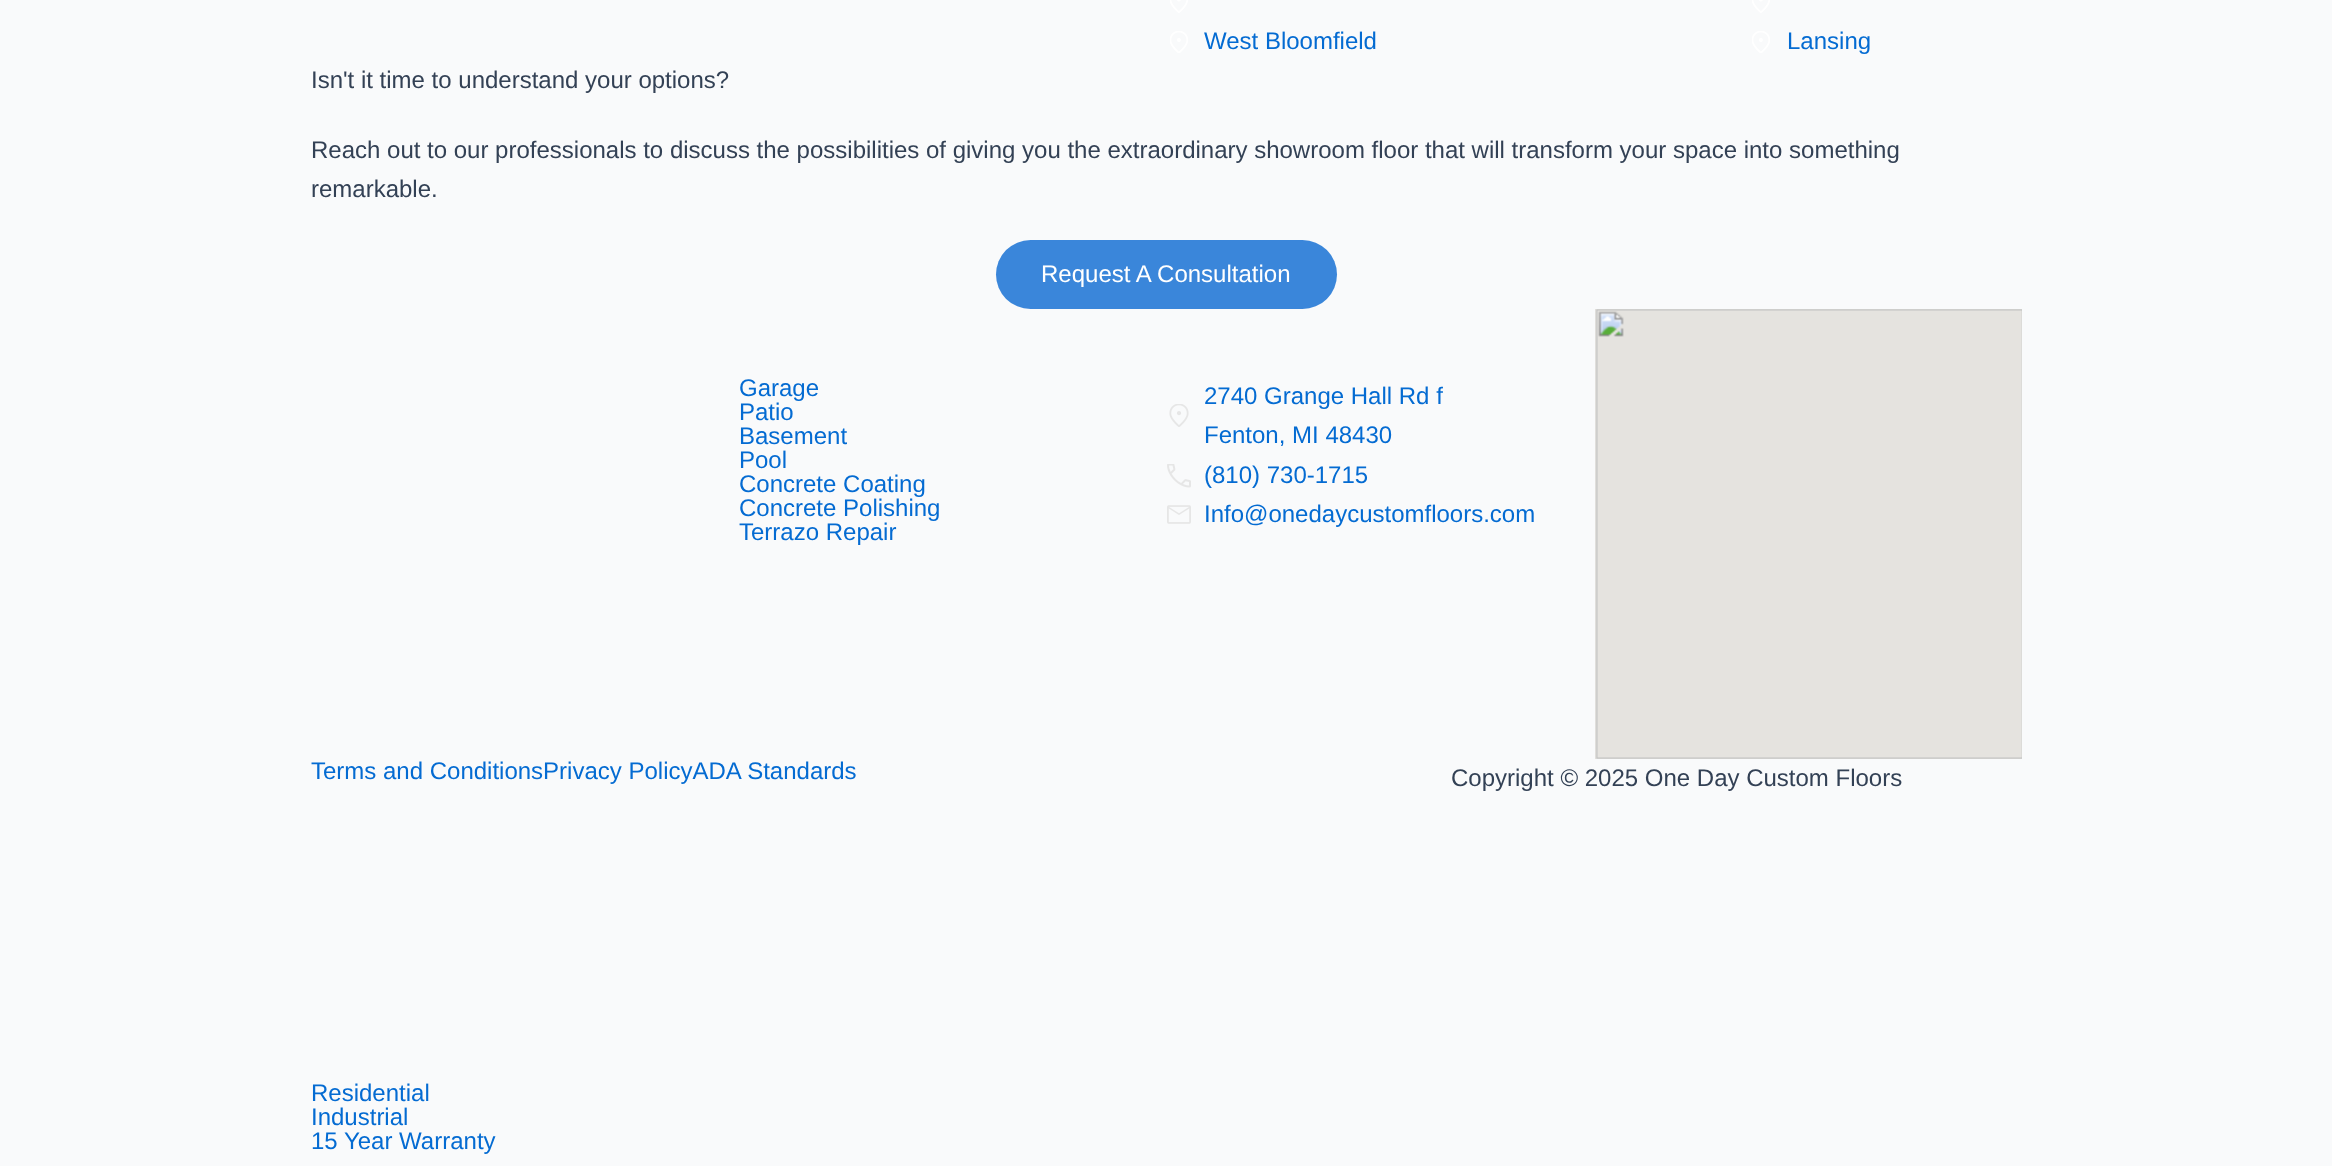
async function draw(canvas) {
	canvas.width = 2332;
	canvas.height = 1166;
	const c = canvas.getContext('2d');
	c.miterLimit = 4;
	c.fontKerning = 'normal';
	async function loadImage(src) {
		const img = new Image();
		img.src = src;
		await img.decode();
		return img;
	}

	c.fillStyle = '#f9fafb';
	c.fillRect(0, 0, 2332, 1166);
	c.drawImage(await loadImage('img1.png'), 1170, 0, 18, 13);
	c.drawImage(await loadImage('img2.png'), 1170, 31, 18, 22);
	c.font = '24px Liberation Sans';
	c.fillStyle = '#046bd2';
	c.fillText('West Bloomfield', 1204, 49);
	c.drawImage(await loadImage('img1.png'), 1752, 0, 18, 13);
	c.drawImage(await loadImage('img2.png'), 1752, 31, 18, 22);
	c.fillText('Lansing', 1787, 49);
	c.fillStyle = '#334155';
	for (const [text, x, y] of [
		['Isn\'t it time to understand your options?', 311, 88],
		['Reach out to our professionals to discuss the possibilities of giving you the extraordinary showroom floor that will transform your space into something', 311, 158],
		['remarkable.', 311, 197],
	]) {
		c.fillText(text, x, y);
	}
	c.fillStyle = '#3a86da';
	c.beginPath();
	c.roundRect(996, 240, 341, 69, 34.5);
	c.fill();
	c.fillStyle = '#fff';
	c.fillText('Request A Consultation', 1041, 282);
	c.fillStyle = '#046bd2';
	for (const [text, x, y] of [
		['Garage', 739, 396],
		['Patio', 739, 420],
		['Basement', 739, 444],
		['Pool', 739, 468],
		['Concrete Coating', 739, 492],
		['Concrete Polishing', 739, 516],
		['Terrazo Repair', 739, 540],
	]) {
		c.fillText(text, x, y);
	}
	c.drawImage(await loadImage('img3.png'), 1169, 404, 20, 23);
	c.fillText('2740 Grange Hall Rd f', 1204, 404);
	c.fillText('Fenton, MI 48430', 1204, 443);
	c.drawImage(await loadImage('img4.png'), 1167, 464, 24, 24);
	c.fillText('(810) 730-1715', 1204, 483);
	c.drawImage(await loadImage('img5.png'), 1167, 505, 24, 19);
	c.fillText('Info@onedaycustomfloors.com', 1204, 522);
	c.drawImage(await loadImage('img6.png'), 1595, 309, 427, 450);
	c.fillText('Terms and ConditionsPrivacy PolicyADA Standards', 311, 779);
	c.fillStyle = '#334155';
	c.fillText('Copyright © 2025 One Day Custom Floors', 1451, 786);
	c.fillStyle = '#046bd2';
	for (const [text, x, y] of [
		['Residential', 311, 1101],
		['Industrial', 311, 1125],
		['15 Year Warranty', 311, 1149],
	]) {
		c.fillText(text, x, y);
	}
}

draw(document.querySelector('canvas'));
